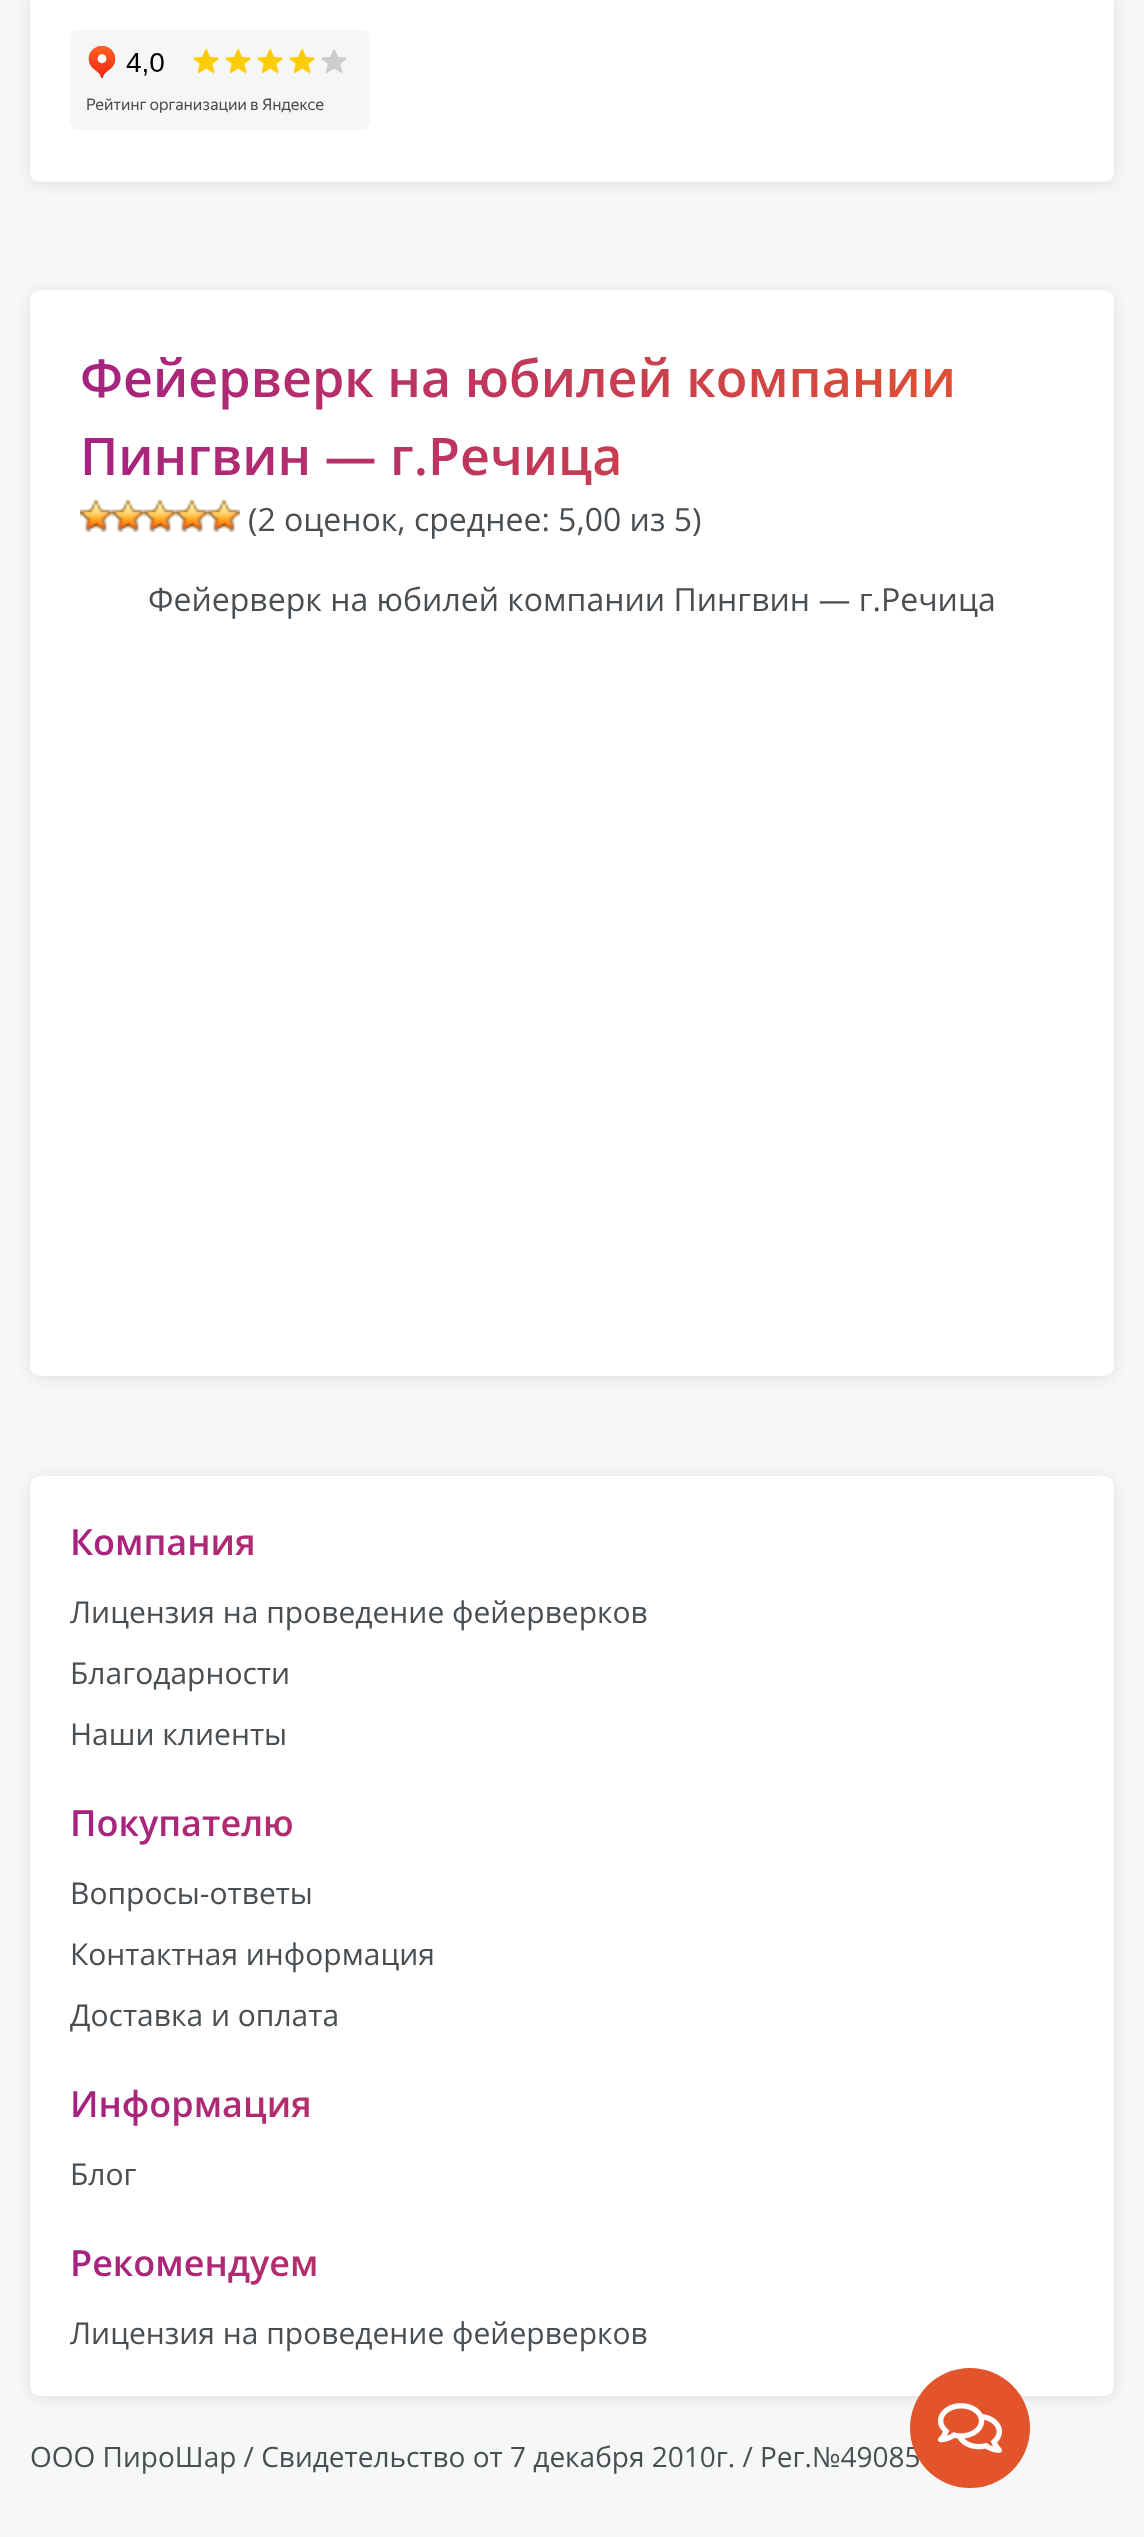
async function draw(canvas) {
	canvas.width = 1144;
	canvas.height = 2537;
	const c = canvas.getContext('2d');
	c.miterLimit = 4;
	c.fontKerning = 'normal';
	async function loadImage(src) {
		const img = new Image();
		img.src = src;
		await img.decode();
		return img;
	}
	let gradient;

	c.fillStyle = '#f6f7f7';
	c.fillRect(0, 0, 1144, 2537);
	c.fillStyle = '#2425261c';
	c.filter = 'blur(7px)';
	c.beginPath();
	c.roundRect(30, -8, 1084, 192, 10);
	c.fill();
	c.filter = 'none';
	c.fillStyle = '#fff';
	c.beginPath();
	c.roundRect(30, -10, 1084, 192, 10);
	c.fill();
	c.drawImage(await loadImage('img1.png'), 70, 30, 300, 100);
	c.fillStyle = '#2425261c';
	c.filter = 'blur(7px)';
	c.beginPath();
	c.roundRect(30, 292, 1084, 1086, 10);
	c.fill();
	c.filter = 'none';
	c.fillStyle = '#fff';
	c.beginPath();
	c.roundRect(30, 290, 1084, 1086, 10);
	c.fill();
	c.font = '600 52px Open Sans';
	gradient = c.createLinearGradient(1064, 417, 80, 417);
	gradient.addColorStop(0.03, '#e3532c');
	gradient.addColorStop(1, '#a52281');
	c.fillStyle = gradient;
	c.fillText('Фейерверк на юбилей компании', 80, 397);
	c.fillText('Пингвин — г.Речица', 80, 475);
	c.drawImage(await loadImage('img2.png'), 80, 500, 32, 32);
	c.drawImage(await loadImage('img2.png'), 112, 500, 32, 32);
	c.drawImage(await loadImage('img2.png'), 144, 500, 32, 32);
	c.drawImage(await loadImage('img2.png'), 176, 500, 32, 32);
	c.drawImage(await loadImage('img2.png'), 208, 500, 32, 32);
	c.font = '32px Open Sans';
	c.fillStyle = '#494e52';
	c.fillText('(2 оценок, среднее: 5,00 из 5)', 248, 531);
	c.fillText('Фейерверк на юбилей компании Пингвин — г.Речица', 148, 611);
	c.fillStyle = '#2425261c';
	c.filter = 'blur(7px)';
	c.beginPath();
	c.roundRect(30, 1478, 1084, 920, 10);
	c.fill();
	c.filter = 'none';
	c.fillStyle = '#fff';
	c.beginPath();
	c.roundRect(30, 1476, 1084, 920, 10);
	c.fill();
	c.font = '600 36px Open Sans';
	gradient = c.createLinearGradient(1074, 1542, 70, 1542);
	gradient.addColorStop(0.03, '#e3532c');
	gradient.addColorStop(1, '#a52281');
	c.fillStyle = gradient;
	c.fillText('Компания', 70, 1555);
	c.font = '30px Open Sans';
	c.fillStyle = '#494e52';
	for (const [text, x, y] of [
		['Лицензия на проведение фейерверков', 70, 1623],
		['Благодарности', 70, 1684],
		['Наши клиенты', 70, 1745],
	]) {
		c.fillText(text, x, y);
	}
	c.font = '600 36px Open Sans';
	gradient = c.createLinearGradient(1074, 1823, 70, 1823);
	gradient.addColorStop(0.03, '#e3532c');
	gradient.addColorStop(1, '#a52281');
	c.fillStyle = gradient;
	c.fillText('Покупателю', 70, 1836);
	c.font = '30px Open Sans';
	c.fillStyle = '#494e52';
	for (const [text, x, y] of [
		['Вопросы-ответы', 70, 1904],
		['Контактная информация', 70, 1965],
		['Доставка и оплата', 70, 2026],
	]) {
		c.fillText(text, x, y);
	}
	c.font = '600 36px Open Sans';
	gradient = c.createLinearGradient(1074, 2104, 70, 2104);
	gradient.addColorStop(0.03, '#e3532c');
	gradient.addColorStop(1, '#a52281');
	c.fillStyle = gradient;
	c.fillText('Информация', 70, 2117);
	c.font = '30px Open Sans';
	c.fillStyle = '#494e52';
	c.fillText('Блог', 70, 2185);
	c.font = '600 36px Open Sans';
	gradient = c.createLinearGradient(1074, 2263, 70, 2263);
	gradient.addColorStop(0.03, '#e3532c');
	gradient.addColorStop(1, '#a52281');
	c.fillStyle = gradient;
	c.fillText('Рекомендуем', 70, 2276);
	c.font = '30px Open Sans';
	c.fillStyle = '#494e52';
	c.fillText('Лицензия на проведение фейерверков', 70, 2344);
	c.font = '28px Open Sans';
	c.fillText('ООО ПироШар / Свидетельство от 7 декабря 2010г. / Рег.№49085', 30, 2467);
	c.fillStyle = '#e3532c';
	c.beginPath();
	c.arc(970, 2428, 60, 0, 2 * Math.PI);
	c.fill();
	c.drawImage(await loadImage('img3.png'), 938, 2403, 64, 50);
}

draw(document.querySelector('canvas'));
